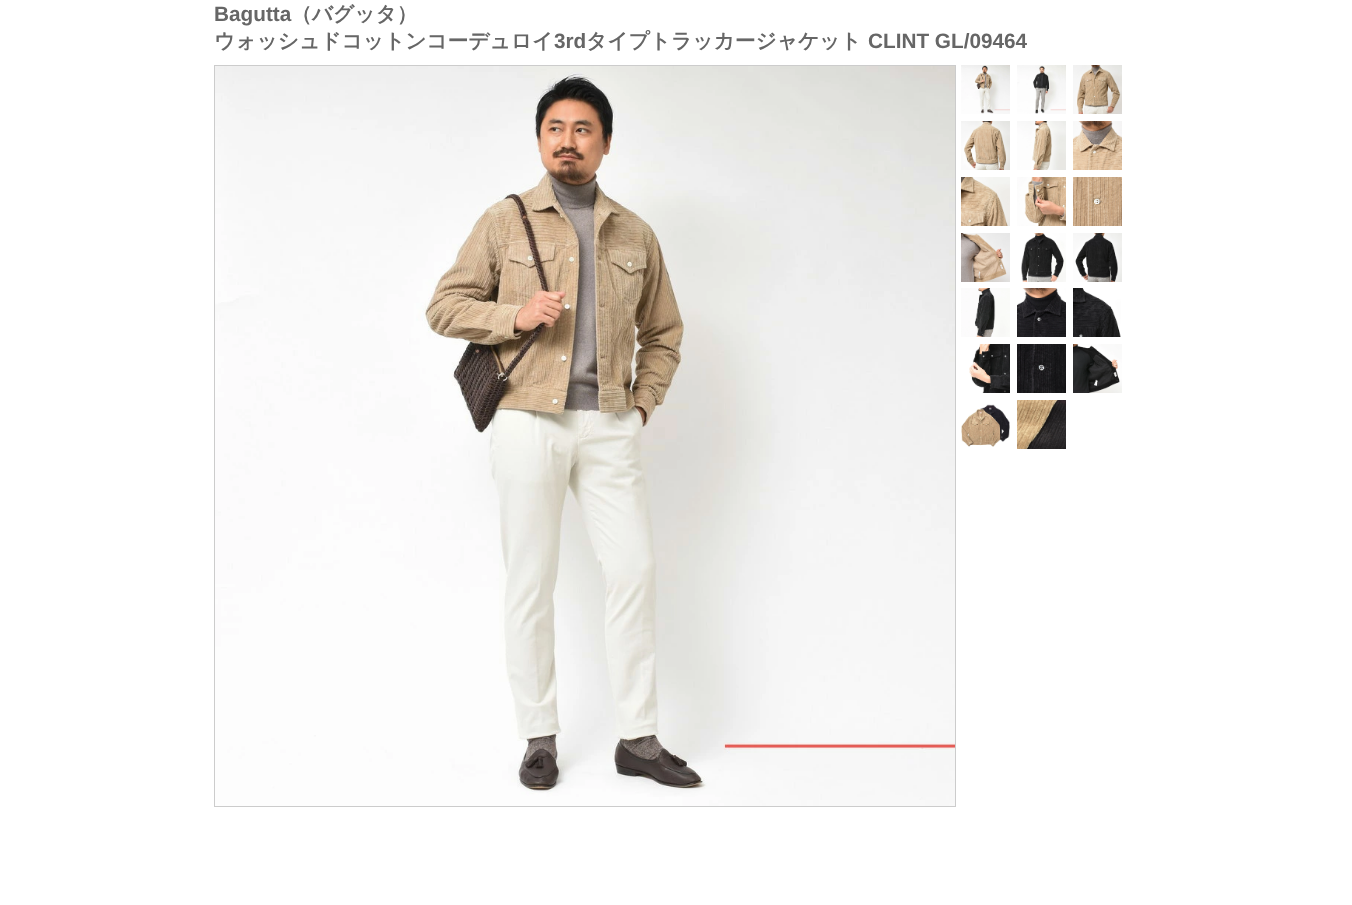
async function draw(canvas) {
	canvas.width = 1352;
	canvas.height = 905;
	const c = canvas.getContext('2d');
	c.miterLimit = 4;
	c.fontKerning = 'normal';
	async function loadImage(src) {
		const img = new Image();
		img.src = src;
		await img.decode();
		return img;
	}

	c.fillStyle = '#fff';
	c.fillRect(0, 0, 1352, 905);
	c.font = 'bold 20.75px Liberation Sans';
	c.fillStyle = '#666';
	c.fillText('Bagutta', 214, 21);
	c.font = 'bold 20.75px WenQuanYi Zen Hei';
	c.fillText('（バグッタ）', 291, 21);
	c.fillText('ウォッシュドコットンコーデュロイ', 214, 48);
	c.font = 'bold 20.75px Liberation Sans';
	c.fillText('3rd', 554, 48);
	c.font = 'bold 20.75px WenQuanYi Zen Hei';
	c.fillText('タイプトラッカージャケット', 586, 48);
	c.font = 'bold 20.75px Liberation Sans';
	c.fillText('CLINT GL/09464', 868, 48);
	c.strokeStyle = '#ccc';
	c.strokeRect(214.5, 65.5, 741, 741);
	c.drawImage(await loadImage('img1.png'), 215, 66, 740, 740);
	c.drawImage(await loadImage('img2.png'), 961, 65, 49, 49);
	c.drawImage(await loadImage('img3.png'), 1017, 65, 49, 49);
	c.drawImage(await loadImage('img4.png'), 1073, 65, 49, 49);
	c.drawImage(await loadImage('img5.png'), 961, 121, 49, 49);
	c.drawImage(await loadImage('img6.png'), 1017, 121, 49, 49);
	c.drawImage(await loadImage('img7.png'), 1073, 121, 49, 49);
	c.drawImage(await loadImage('img8.png'), 961, 177, 49, 49);
	c.drawImage(await loadImage('img9.png'), 1017, 177, 49, 49);
	c.drawImage(await loadImage('img10.png'), 1073, 177, 49, 49);
	c.drawImage(await loadImage('img11.png'), 961, 233, 49, 49);
	c.drawImage(await loadImage('img12.png'), 1021, 233, 45, 49);
	c.drawImage(await loadImage('img13.png'), 1073, 233, 49, 49);
	c.drawImage(await loadImage('img14.png'), 961, 288, 49, 49);
	c.drawImage(await loadImage('img15.png'), 1017, 288, 49, 49);
	c.drawImage(await loadImage('img16.png'), 1073, 288, 48, 49);
	c.drawImage(await loadImage('img17.png'), 969, 344, 41, 49);
	c.drawImage(await loadImage('img18.png'), 1017, 344, 49, 49);
	c.drawImage(await loadImage('img19.png'), 1073, 344, 49, 49);
	c.drawImage(await loadImage('img20.png'), 961, 404, 49, 43);
	c.drawImage(await loadImage('img21.png'), 1017, 400, 49, 49);
}

draw(document.querySelector('canvas'));
